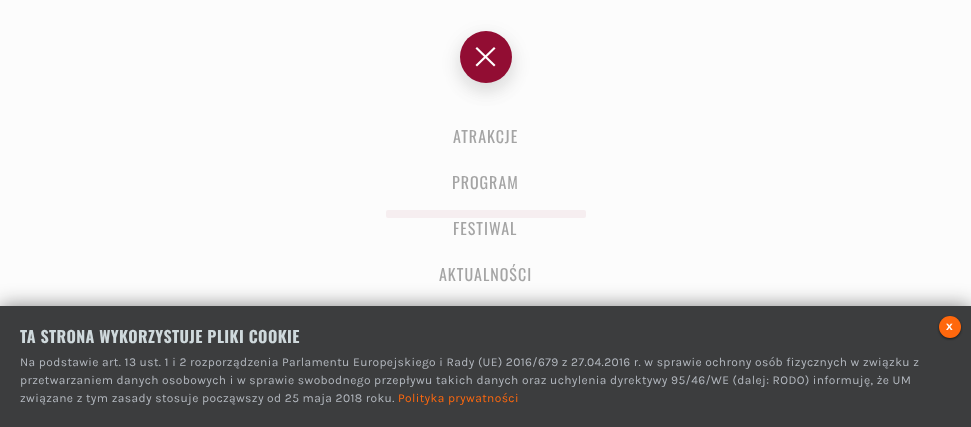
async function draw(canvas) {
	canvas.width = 971;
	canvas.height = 427;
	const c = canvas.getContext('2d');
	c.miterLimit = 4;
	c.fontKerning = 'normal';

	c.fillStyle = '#fcfcfc';
	c.fillRect(0, 0, 971, 427);
	c.fillStyle = '#0d0d0d14';
	c.filter = 'blur(8.5px)';
	c.beginPath();
	c.roundRect(460, 39, 52, 52, 26);
	c.fill();
	c.filter = 'none';
	c.fillStyle = '#0d0d0d17';
	c.filter = 'blur(10px)';
	c.beginPath();
	c.roundRect(460, 37, 52, 52, 26);
	c.fill();
	c.filter = 'none';
	c.fillStyle = '#920d33';
	c.beginPath();
	c.arc(486, 57, 26, 0, 2 * Math.PI);
	c.fill();
	c.fillStyle = '#fff';
	c.beginPath();
	c.moveTo(477, 47);
	c.lineTo(495.5, 65);
	c.lineTo(494, 66.5);
	c.lineTo(475.5, 48.5);
	c.closePath();
	c.fill();
	c.beginPath();
	c.moveTo(475.5, 65);
	c.lineTo(494, 47);
	c.lineTo(495.5, 48.5);
	c.lineTo(477, 66.5);
	c.closePath();
	c.fill();
	c.letterSpacing = '1px';
	c.font = '16px Oswald';
	c.fillStyle = '#a4a4a4';
	for (const [text, x, y] of [
		['ATRAKCJE', 453, 143],
		['PROGRAM', 452, 189],
		['FESTIWAL', 453, 235],
		['AKTUALNOŚCI', 439, 281],
	]) {
		c.fillText(text, x, y);
	}
	c.fillStyle = '#f6eef0';
	c.beginPath();
	c.roundRect(386, 210, 200, 8, 2);
	c.fill();
	c.fillStyle = '#0d0d0d80';
	c.filter = 'blur(10px)';
	c.beginPath();
	c.rect(0, 306, 971, 121);
	c.fill();
	c.filter = 'none';
	c.fillStyle = '#3c3d3e';
	c.fillRect(0, 306, 971, 121);
	c.fillStyle = '#0d0d0dbf';
	c.filter = 'blur(1px)';
	c.beginPath();
	c.roundRect(939, 317, 22, 22, 11);
	c.fill();
	c.filter = 'none';
	c.fillStyle = '#ff680d';
	c.beginPath();
	c.arc(950, 327, 11, 0, 2 * Math.PI);
	c.fill();
	c.letterSpacing = '0.39px';
	c.font = 'bold 12px Liberation Sans';
	c.fillStyle = '#fff';
	c.fillText('x', 946, 330);
	c.font = 'bold 16px Oswald';
	c.fillStyle = '#cfd9dc';
	c.fillText('TA STRONA WYKORZYSTUJE PLIKI COOKIE', 20, 343);
	c.font = '12px Karla';
	c.fillStyle = '#b3b8bf';
	for (const [text, x, y] of [
		['Na podstawie art. 13 ust. 1 i 2 rozporządzenia Parlamentu Europejskiego i Rady (UE) 2016/679 z 27.04.2016 r. w sprawie ochrony osób fizycznych w związku z', 20, 366],
		['przetwarzaniem danych osobowych i w sprawie swobodnego przepływu takich danych oraz uchylenia dyrektywy 95/46/WE (dalej: RODO) informuję, że UM', 20, 384],
		['związane z tym zasady stosuje począwszy od 25 maja 2018 roku.', 20, 402],
	]) {
		c.fillText(text, x, y);
	}
	c.fillStyle = '#ff680d';
	c.fillText('Polityka prywatności', 398, 402);
}

draw(document.querySelector('canvas'));
